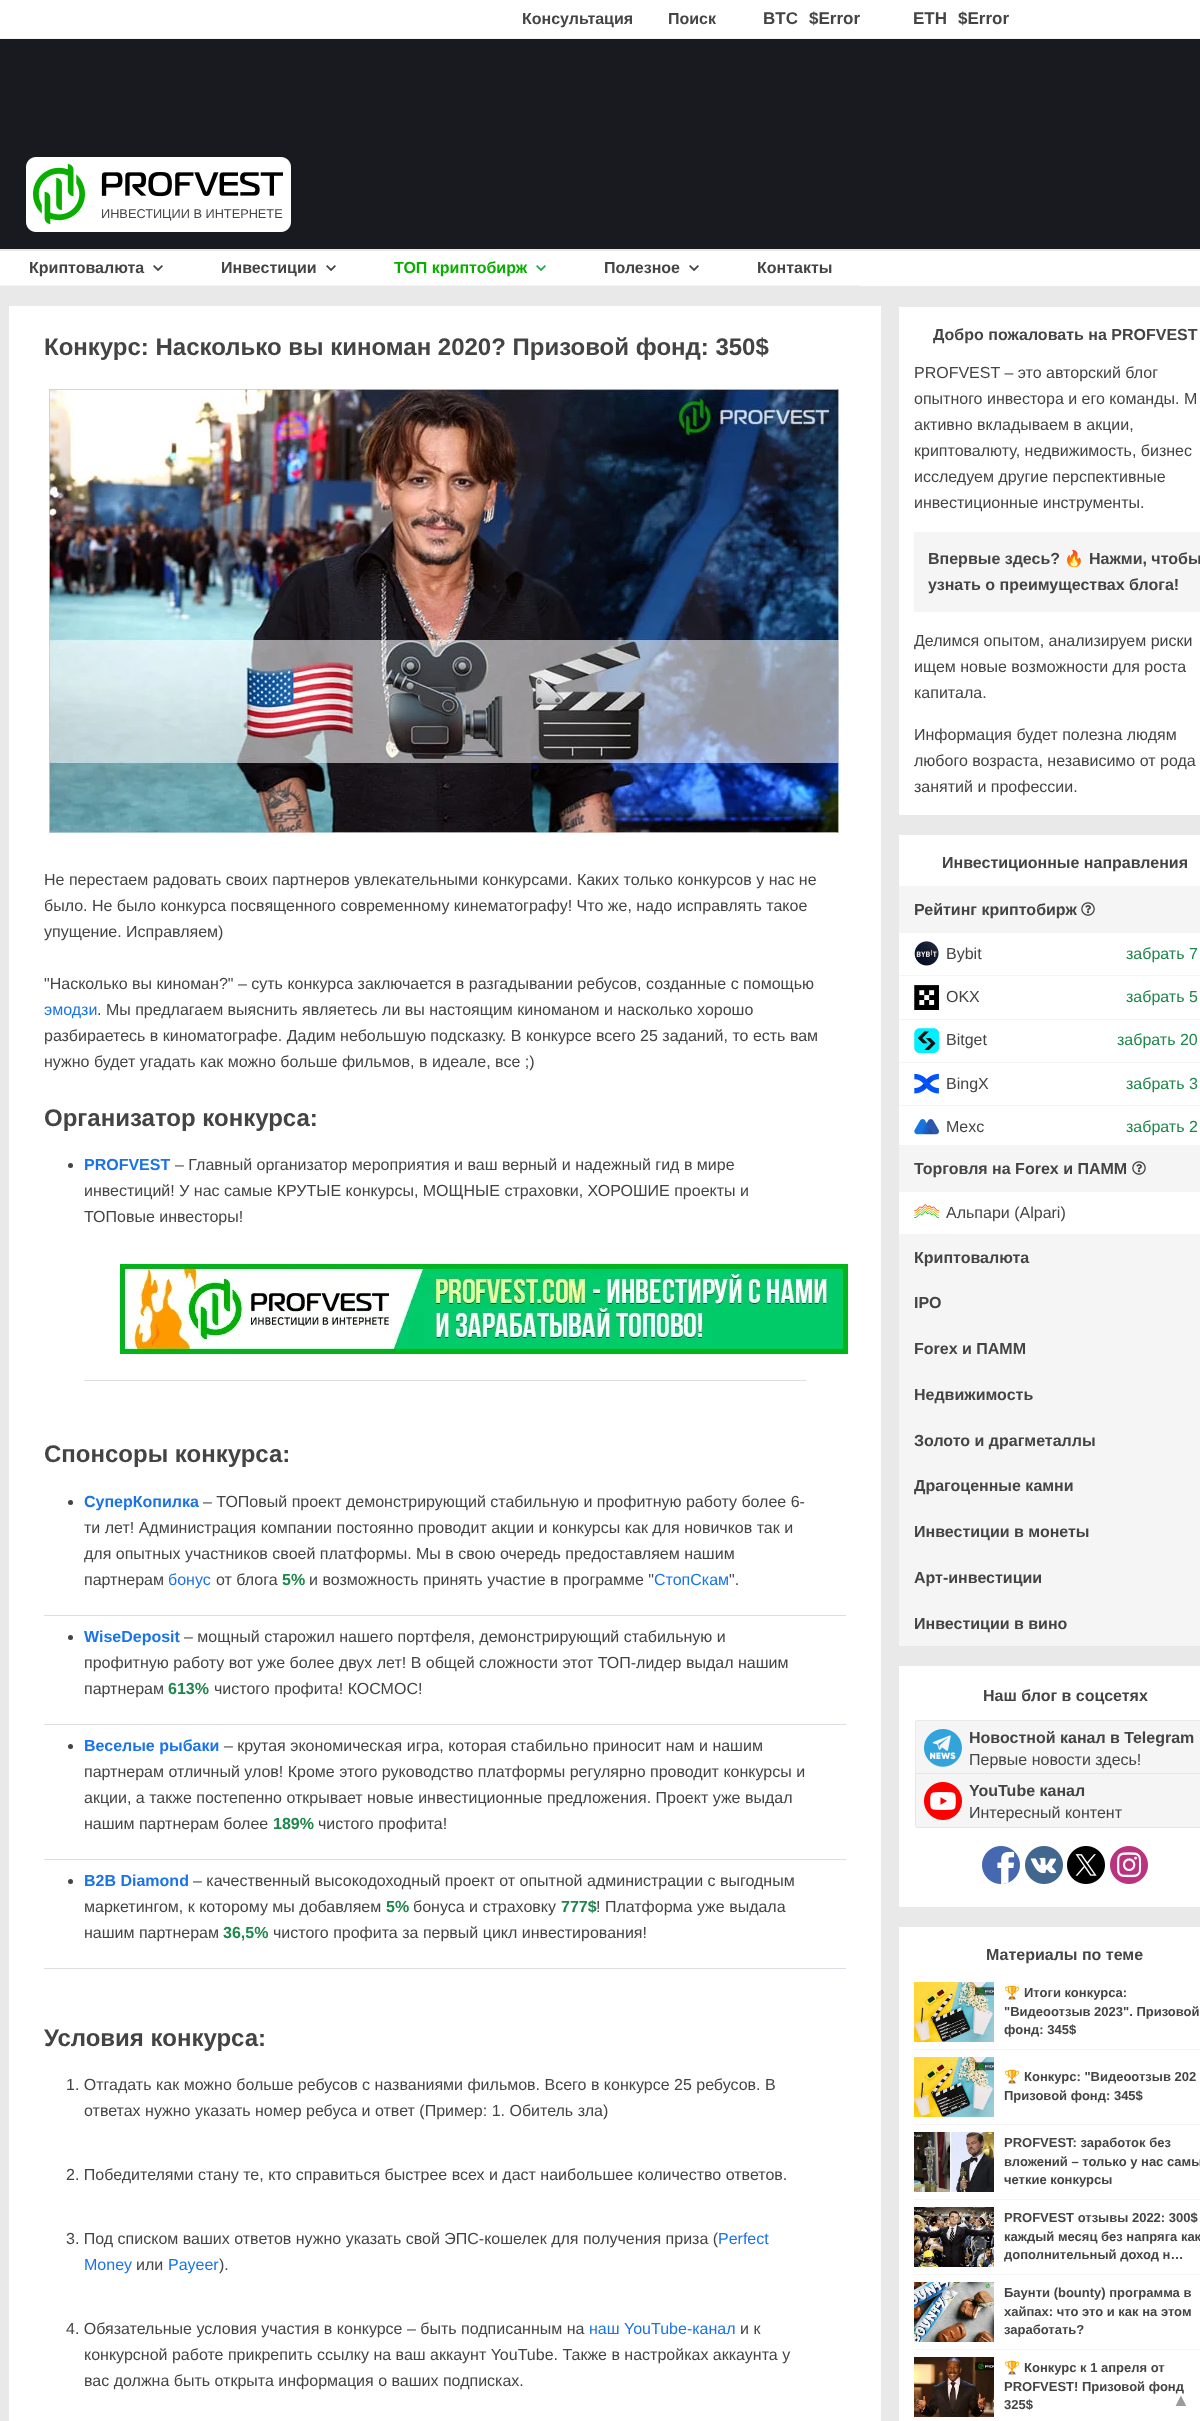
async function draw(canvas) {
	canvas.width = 1200;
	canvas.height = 2421;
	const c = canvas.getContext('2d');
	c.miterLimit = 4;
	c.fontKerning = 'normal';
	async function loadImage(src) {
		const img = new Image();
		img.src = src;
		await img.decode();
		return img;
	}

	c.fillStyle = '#e9e9e9';
	c.fillRect(0, 0, 1200, 2421);
	c.fillStyle = '#fff';
	c.fillRect(0, 0, 1200, 38);
	c.fillStyle = '#f5f5f5';
	c.fillRect(0, 38, 1200, 1);
	c.font = 'bold 16px Liberation Sans';
	c.fillStyle = '#444';
	c.fillText('Консультация', 522, 24);
	c.fillText('Поиск', 668, 24);
	c.font = 'bold 17px Liberation Sans';
	for (const [text, x, y] of [
		['BTC', 763, 24],
		['$Error', 809, 24],
		['ETH', 913, 24],
		['$Error', 958, 24],
	]) {
		c.fillText(text, x, y);
	}
	c.fillStyle = '#181a20';
	c.fillRect(0, 39, 1200, 210);
	c.drawImage(await loadImage('img1.png'), 26, 157, 265, 75);
	c.font = '12.75px Liberation Sans';
	c.fillStyle = '#444';
	c.fillText('ИНВЕСТИЦИИ В ИНТЕРНЕТЕ', 101, 218);
	c.fillStyle = '#fff';
	c.fillRect(0, 251, 1200, 35);
	c.fillStyle = '#f5f5f5';
	c.fillRect(0, 285, 861, 1);
	c.font = 'bold 16px Liberation Sans';
	c.fillStyle = '#444';
	c.fillText('Криптовалюта', 29, 273);
	c.drawImage(await loadImage('img2.png'), 153, 265, 10, 6);
	c.fillText('Инвестиции', 221, 273);
	c.drawImage(await loadImage('img2.png'), 326, 265, 10, 6);
	c.fillStyle = '#0aae00';
	c.fillText('ТОП криптобирж', 394, 273);
	c.drawImage(await loadImage('img3.png'), 536, 265, 10, 6);
	c.fillStyle = '#444';
	c.fillText('Полезное', 604, 273);
	c.drawImage(await loadImage('img2.png'), 689, 265, 10, 6);
	c.fillText('Контакты', 757, 273);
	c.fillStyle = '#fff';
	c.fillRect(9, 306, 872, 2115);
	c.font = 'bold 24px Liberation Sans';
	c.fillStyle = '#444';
	c.fillText('Конкурс: Насколько вы киноман 2020? Призовой фонд: 350$', 44, 355);
	c.drawImage(await loadImage('img4.png'), 49, 389, 790, 444);
	c.font = '16px Liberation Sans';
	for (const [text, x, y] of [
		['Не перестаем радовать своих партнеров увлекательными конкурсами. Каких только конкурсов у нас не', 44, 885],
		['было. Не было конкурса посвященного современному кинематографу! Что же, надо исправлять такое', 44, 911],
		['упущение. Исправляем)', 44, 937],
		['"Насколько вы киноман?" – суть конкурса заключается в разгадывании ребусов, созданные с помощью', 44, 989],
	]) {
		c.fillText(text, x, y);
	}
	c.fillStyle = '#1a73e8';
	c.fillText('эмодзи', 44, 1015);
	c.fillStyle = '#444';
	for (const [text, x, y] of [
		['. Мы предлагаем выяснить являетесь ли вы настоящим киноманом и насколько хорошо', 97, 1015],
		['разбираетесь в киноматографе. Дадим небольшую подсказку. В конкурсе всего 25 заданий, то есть вам', 44, 1041],
		['нужно будет угадать как можно больше фильмов, в идеале, все ;)', 44, 1067],
	]) {
		c.fillText(text, x, y);
	}
	c.font = 'bold 24px Liberation Sans';
	c.fillText('Организатор конкурса:', 44, 1126);
	c.beginPath();
	c.arc(70.5, 1165.5, 2.5, 0, 2 * Math.PI);
	c.fill();
	c.font = 'bold 16px Liberation Sans';
	c.fillStyle = '#1a73e8';
	c.fillText('PROFVEST', 84, 1170);
	c.font = '16px Liberation Sans';
	c.fillStyle = '#444';
	for (const [text, x, y] of [
		['– Главный организатор мероприятия и ваш верный и надежный гид в мире', 175, 1170],
		['инвестиций! У нас самые КРУТЫЕ конкурсы, МОЩНЫЕ страховки, ХОРОШИЕ проекты и', 84, 1196],
		['ТОПовые инвесторы!', 84, 1222],
	]) {
		c.fillText(text, x, y);
	}
	c.drawImage(await loadImage('img5.png'), 120, 1264, 728, 90);
	c.fillStyle = '#dbdfe4';
	c.fillRect(84, 1380, 722, 1);
	c.font = 'bold 24px Liberation Sans';
	c.fillStyle = '#444';
	c.fillText('Спонсоры конкурса:', 44, 1462);
	c.beginPath();
	c.arc(70.5, 1502.5, 2.5, 0, 2 * Math.PI);
	c.fill();
	c.font = 'bold 16px Liberation Sans';
	c.fillStyle = '#1a73e8';
	c.fillText('СуперКопилка', 84, 1507);
	c.font = '16px Liberation Sans';
	c.fillStyle = '#444';
	for (const [text, x, y] of [
		['– ТОПовый проект демонстрирующий стабильную и профитную работу более 6-', 203, 1507],
		['ти лет! Администрация компании постоянно проводит акции и конкурсы как для новичков так и', 84, 1533],
		['для опытных участников своей платформы. Мы в свою очередь предоставляем нашим', 84, 1559],
		['партнерам', 84, 1585],
	]) {
		c.fillText(text, x, y);
	}
	c.fillStyle = '#1a73e8';
	c.fillText('бонус', 168, 1585);
	c.fillStyle = '#444';
	c.fillText('от блога', 216, 1585);
	c.font = 'bold 16px Liberation Sans';
	c.fillStyle = '#1e874a';
	c.fillText('5%', 282, 1585);
	c.font = '16px Liberation Sans';
	c.fillStyle = '#444';
	c.fillText('и возможность принять участие в программе "', 309, 1585);
	c.fillStyle = '#1a73e8';
	c.fillText('СтопСкам', 654, 1585);
	c.fillStyle = '#444';
	c.fillText('".', 729, 1585);
	c.fillStyle = '#dbdfe4';
	c.fillRect(44, 1615, 802, 1);
	c.fillStyle = '#444';
	c.beginPath();
	c.arc(70.5, 1637.5, 2.5, 0, 2 * Math.PI);
	c.fill();
	c.font = 'bold 16px Liberation Sans';
	c.fillStyle = '#1a73e8';
	c.fillText('WiseDeposit', 84, 1642);
	c.font = '16px Liberation Sans';
	c.fillStyle = '#444';
	for (const [text, x, y] of [
		['– мощный старожил нашего портфеля, демонстрирующий стабильную и', 184, 1642],
		['профитную работу вот уже более двух лет! В общей сложности этот ТОП-лидер выдал нашим', 84, 1668],
		['партнерам', 84, 1694],
	]) {
		c.fillText(text, x, y);
	}
	c.font = 'bold 16px Liberation Sans';
	c.fillStyle = '#1e874a';
	c.fillText('613%', 168, 1694);
	c.font = '16px Liberation Sans';
	c.fillStyle = '#444';
	c.fillText('чистого профита! КОСМОС!', 214, 1694);
	c.fillStyle = '#dbdfe4';
	c.fillRect(44, 1724, 802, 1);
	c.fillStyle = '#444';
	c.beginPath();
	c.arc(70.5, 1746.5, 2.5, 0, 2 * Math.PI);
	c.fill();
	c.font = 'bold 16px Liberation Sans';
	c.fillStyle = '#1a73e8';
	c.fillText('Веселые рыбаки', 84, 1751);
	c.font = '16px Liberation Sans';
	c.fillStyle = '#444';
	for (const [text, x, y] of [
		['– крутая экономическая игра, которая стабильно приносит нам и нашим', 224, 1751],
		['партнерам отличный улов! Кроме этого руководство платформы регулярно проводит конкурсы и', 84, 1777],
		['акции, а также постепенно открывает новые инвестиционные предложения. Проект уже выдал', 84, 1803],
		['нашим партнерам более', 84, 1829],
	]) {
		c.fillText(text, x, y);
	}
	c.font = 'bold 16px Liberation Sans';
	c.fillStyle = '#1e874a';
	c.fillText('189%', 273, 1829);
	c.font = '16px Liberation Sans';
	c.fillStyle = '#444';
	c.fillText('чистого профита!', 318, 1829);
	c.fillStyle = '#dbdfe4';
	c.fillRect(44, 1859, 802, 1);
	c.fillStyle = '#444';
	c.beginPath();
	c.arc(70.5, 1881.5, 2.5, 0, 2 * Math.PI);
	c.fill();
	c.font = 'bold 16px Liberation Sans';
	c.fillStyle = '#1a73e8';
	c.fillText('B2B Diamond', 84, 1886);
	c.font = '16px Liberation Sans';
	c.fillStyle = '#444';
	c.fillText('– качественный высокодоходный проект от опытной администрации с выгодным', 193, 1886);
	c.fillText('маркетингом, к которому мы добавляем', 84, 1912);
	c.font = 'bold 16px Liberation Sans';
	c.fillStyle = '#1e874a';
	c.fillText('5%', 386, 1912);
	c.font = '16px Liberation Sans';
	c.fillStyle = '#444';
	c.fillText('бонуса и страховку', 413, 1912);
	c.font = 'bold 16px Liberation Sans';
	c.fillStyle = '#1e874a';
	c.fillText('777$', 561, 1912);
	c.font = '16px Liberation Sans';
	c.fillStyle = '#444';
	c.fillText('! Платформа уже выдала', 596, 1912);
	c.fillText('нашим партнерам', 84, 1938);
	c.font = 'bold 16px Liberation Sans';
	c.fillStyle = '#1e874a';
	c.fillText('36,5%', 223, 1938);
	c.font = '16px Liberation Sans';
	c.fillStyle = '#444';
	c.fillText('чистого профита за первый цикл инвестирования!', 273, 1938);
	c.fillStyle = '#dbdfe4';
	c.fillRect(44, 1968, 802, 1);
	c.font = 'bold 24px Liberation Sans';
	c.fillStyle = '#444';
	c.fillText('Условия конкурса:', 44, 2046);
	c.font = '16px Liberation Sans';
	for (const [text, x, y] of [
		['1. Отгадать как можно больше ребусов с названиями фильмов. Всего в конкурсе 25 ребусов. В', 66, 2090],
		['ответах нужно указать номер ребуса и ответ (Пример: 1. Обитель зла)', 84, 2116],
		['2. Победителями стану те, кто справиться быстрее всех и даст наибольшее количество ответов.', 66, 2180],
		['3. Под списком ваших ответов нужно указать свой ЭПС-кошелек для получения приза (', 66, 2244],
	]) {
		c.fillText(text, x, y);
	}
	c.fillStyle = '#1a73e8';
	c.fillText('Perfect', 718, 2244);
	c.fillText('Money', 84, 2270);
	c.fillStyle = '#444';
	c.fillText('или', 136, 2270);
	c.fillStyle = '#1a73e8';
	c.fillText('Payeer', 168, 2270);
	c.fillStyle = '#444';
	c.fillText(').', 219, 2270);
	c.fillText('4. Обязательные условия участия в конкурсе – быть подписанным на', 66, 2334);
	c.fillStyle = '#1a73e8';
	c.fillText('наш YouTube-канал', 589, 2334);
	c.fillStyle = '#444';
	for (const [text, x, y] of [
		['и к', 740, 2334],
		['конкурсной работе прикрепить ссылку на ваш аккаунт YouTube. Также в настройках аккаунта у', 84, 2360],
		['вас должна быть открыта информация о ваших подписках.', 84, 2386],
	]) {
		c.fillText(text, x, y);
	}
	c.fillStyle = '#fff';
	c.fillRect(899, 307, 301, 508);
	c.font = 'bold 16px Liberation Sans';
	c.fillStyle = '#444';
	c.fillText('Добро пожаловать на PROFVEST', 933, 340);
	c.font = '16px Liberation Sans';
	for (const [text, x, y] of [
		['PROFVEST – это авторский блог', 914, 378],
		['опытного инвестора и его команды. М', 914, 404],
		['активно вкладываем в акции,', 914, 430],
		['криптовалюту, недвижимость, бизнес', 914, 456],
		['исследуем другие перспективные', 914, 482],
		['инвестиционные инструменты.', 914, 508],
	]) {
		c.fillText(text, x, y);
	}
	c.fillStyle = '#f5f5f5';
	c.fillRect(914, 532, 286, 80);
	c.font = 'bold 16px Liberation Sans';
	c.fillStyle = '#444';
	c.fillText('Впервые здесь?', 928, 564);
	c.font = 'bold 16px Noto Color Emoji';
	c.fillText('🔥', 1064, 564);
	c.font = 'bold 16px Liberation Sans';
	c.fillText('Нажми, чтобы', 1089, 564);
	c.fillText('узнать о преимуществах блога!', 928, 590);
	c.font = '16px Liberation Sans';
	for (const [text, x, y] of [
		['Делимся опытом, анализируем риски', 914, 646],
		['ищем новые возможности для роста', 914, 672],
		['капитала.', 914, 698],
		['Информация будет полезна людям', 914, 740],
		['любого возраста, независимо от рода', 914, 766],
		['занятий и профессии.', 914, 792],
	]) {
		c.fillText(text, x, y);
	}
	c.fillStyle = '#fff';
	c.fillRect(899, 835, 301, 399);
	c.font = 'bold 16px Liberation Sans';
	c.fillStyle = '#444';
	c.fillText('Инвестиционные направления', 942, 868);
	c.fillStyle = '#f5f5f5';
	c.fillRect(899, 886, 301, 47);
	c.fillStyle = '#444';
	c.fillText('Рейтинг криптобирж', 914, 915);
	c.drawImage(await loadImage('img6.png'), 1081, 902, 14, 14);
	c.drawImage(await loadImage('img7.png'), 914, 941, 25, 25);
	c.font = '16px Liberation Sans';
	c.fillText('Bybit', 946, 959);
	c.fillStyle = '#1e874a';
	c.fillText('забрать 7', 1126, 959);
	c.fillStyle = '#f5f5f5';
	c.fillRect(899, 975, 301, 1);
	c.drawImage(await loadImage('img8.png'), 914, 985, 25, 25);
	c.fillStyle = '#444';
	c.fillText('OKX', 946, 1002);
	c.fillStyle = '#1e874a';
	c.fillText('забрать 5', 1126, 1002);
	c.fillStyle = '#f5f5f5';
	c.fillRect(899, 1019, 301, 1);
	c.drawImage(await loadImage('img9.png'), 914, 1028, 25, 25);
	c.fillStyle = '#444';
	c.fillText('Bitget', 946, 1045);
	c.fillStyle = '#1e874a';
	c.fillText('забрать 20', 1117, 1045);
	c.fillStyle = '#f5f5f5';
	c.fillRect(899, 1062, 301, 1);
	c.drawImage(await loadImage('img10.png'), 914, 1073, 25, 21);
	c.fillStyle = '#444';
	c.fillText('BingX', 946, 1089);
	c.fillStyle = '#1e874a';
	c.fillText('забрать 3', 1126, 1089);
	c.fillStyle = '#f5f5f5';
	c.fillRect(899, 1105, 301, 1);
	c.drawImage(await loadImage('img11.png'), 914, 1119, 25, 16);
	c.fillStyle = '#444';
	c.fillText('Mexc', 946, 1132);
	c.fillStyle = '#1e874a';
	c.fillText('забрать 2', 1126, 1132);
	c.fillStyle = '#f5f5f5';
	c.fillRect(899, 1145, 301, 47);
	c.font = 'bold 16px Liberation Sans';
	c.fillStyle = '#444';
	c.fillText('Торговля на Forex и ПАММ', 914, 1174);
	c.drawImage(await loadImage('img6.png'), 1132, 1161, 14, 14);
	c.drawImage(await loadImage('img12.png'), 914, 1204, 25, 14);
	c.font = '16px Liberation Sans';
	c.fillText('Альпари (Alpari)', 946, 1218);
	c.fillStyle = '#f5f5f5';
	c.fillRect(899, 1234, 301, 412);
	c.font = 'bold 16px Liberation Sans';
	c.fillStyle = '#444';
	for (const [text, x, y] of [
		['Криптовалюта', 914, 1263],
		['IPO', 914, 1308],
		['Forex и ПАММ', 914, 1354],
		['Недвижимость', 914, 1400],
		['Золото и драгметаллы', 914, 1446],
		['Драгоценные камни', 914, 1491],
		['Инвестиции в монеты', 914, 1537],
		['Арт-инвестиции', 914, 1583],
		['Инвестиции в вино', 914, 1629],
	]) {
		c.fillText(text, x, y);
	}
	c.fillStyle = '#fff';
	c.fillRect(899, 1666, 301, 241);
	c.fillStyle = '#444';
	c.fillText('Наш блог в соцсетях', 983, 1701);
	c.fillStyle = '#f5f5f5';
	c.beginPath();
	c.moveTo(918, 1720);
	c.lineTo(1200, 1720);
	c.bezierCurveTo(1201.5, 1720, 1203, 1721.5, 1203, 1723);
	c.lineTo(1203, 1774);
	c.lineTo(915, 1774);
	c.lineTo(915, 1723);
	c.bezierCurveTo(915, 1721.5, 916.5, 1720, 918, 1720);
	c.closePath();
	c.fill();
	c.fillStyle = '#e9e9e9';
	c.beginPath();
	c.moveTo(918, 1720);
	c.lineTo(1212, 1720);
	c.bezierCurveTo(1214, 1720, 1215, 1721, 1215, 1723);
	c.lineTo(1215, 1774);
	c.lineTo(915, 1774);
	c.lineTo(915, 1723);
	c.bezierCurveTo(915, 1721, 916, 1720, 918, 1720);
	c.closePath();
	c.moveTo(918, 1721);
	c.lineTo(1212, 1721);
	c.bezierCurveTo(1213, 1721, 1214, 1722, 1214, 1723);
	c.lineTo(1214, 1774);
	c.lineTo(916, 1774);
	c.lineTo(916, 1723);
	c.bezierCurveTo(916, 1722, 917, 1721, 918, 1721);
	c.closePath();
	c.fill('evenodd');
	c.drawImage(await loadImage('img13.png'), 924, 1729, 38, 38);
	c.fillStyle = '#444';
	c.fillText('Новостной канал в Telegram', 969, 1743);
	c.font = '16px Liberation Sans';
	c.fillText('Первые новости здесь!', 969, 1765);
	c.fillStyle = '#f5f5f5';
	c.beginPath();
	c.moveTo(915.5, 1773.5);
	c.lineTo(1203.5, 1773.5);
	c.lineTo(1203.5, 1825);
	c.bezierCurveTo(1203.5, 1826.5, 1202.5, 1827.5, 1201, 1827.5);
	c.lineTo(918, 1827.5);
	c.bezierCurveTo(916.5, 1827.5, 915.5, 1826.5, 915.5, 1825);
	c.closePath();
	c.fill();
	c.strokeStyle = '#e6e6e6';
	c.stroke();
	c.drawImage(await loadImage('img14.png'), 924, 1782, 38, 38);
	c.font = 'bold 16px Liberation Sans';
	c.fillStyle = '#444';
	c.fillText('YouTube канал', 969, 1796);
	c.font = '16px Liberation Sans';
	c.fillText('Интересный контент', 969, 1818);
	c.drawImage(await loadImage('img15.png'), 982, 1846, 38, 38);
	c.drawImage(await loadImage('img16.png'), 1025, 1846, 38, 38);
	c.drawImage(await loadImage('img17.png'), 1067, 1846, 38, 38);
	c.drawImage(await loadImage('img18.png'), 1110, 1846, 38, 38);
	c.fillStyle = '#fff';
	c.fillRect(899, 1927, 301, 494);
	c.font = 'bold 16px Liberation Sans';
	c.fillStyle = '#444';
	c.fillText('Материалы по теме', 986, 1960);
	c.fillStyle = '#f5f5f5';
	c.fillRect(914, 2049, 286, 1);
	c.drawImage(await loadImage('img19.png'), 914, 1982, 80, 60);
	c.font = 'bold 13px Noto Color Emoji';
	c.fillStyle = '#444';
	c.fillText('🏆', 1004, 1997);
	c.font = 'bold 13px Liberation Sans';
	for (const [text, x, y] of [
		['Итоги конкурса:', 1024, 1997],
		['"Видеоотзыв 2023". Призовой', 1004, 2016],
		['фонд: 345$', 1004, 2034],
	]) {
		c.fillText(text, x, y);
	}
	c.fillStyle = '#f5f5f5';
	c.fillRect(914, 2124, 286, 1);
	c.drawImage(await loadImage('img19.png'), 914, 2057, 80, 60);
	c.font = 'bold 13px Noto Color Emoji';
	c.fillStyle = '#444';
	c.fillText('🏆', 1004, 2081);
	c.font = 'bold 13px Liberation Sans';
	c.fillText('Конкурс: "Видеоотзыв 202', 1024, 2081);
	c.fillText('Призовой фонд: 345$', 1004, 2100);
	c.fillStyle = '#f5f5f5';
	c.fillRect(914, 2199, 286, 1);
	c.drawImage(await loadImage('img20.png'), 914, 2132, 80, 60);
	c.fillStyle = '#444';
	for (const [text, x, y] of [
		['PROFVEST: заработок без', 1004, 2147],
		['вложений – только у нас самы', 1004, 2166],
		['четкие конкурсы', 1004, 2184],
	]) {
		c.fillText(text, x, y);
	}
	c.fillStyle = '#f5f5f5';
	c.fillRect(914, 2274, 286, 1);
	c.drawImage(await loadImage('img21.png'), 914, 2207, 80, 60);
	c.fillStyle = '#444';
	for (const [text, x, y] of [
		['PROFVEST отзывы 2022: 300$', 1004, 2222],
		['каждый месяц без напряга как', 1004, 2241],
		['дополнительный доход н…', 1004, 2259],
	]) {
		c.fillText(text, x, y);
	}
	c.fillStyle = '#f5f5f5';
	c.fillRect(914, 2349, 286, 1);
	c.drawImage(await loadImage('img22.png'), 914, 2282, 80, 60);
	c.fillStyle = '#444';
	for (const [text, x, y] of [
		['Баунти (bounty) программа в', 1004, 2297],
		['хайпах: что это и как на этом', 1004, 2316],
		['заработать?', 1004, 2334],
	]) {
		c.fillText(text, x, y);
	}
	c.drawImage(await loadImage('img23.png'), 914, 2357, 80, 60);
	c.font = 'bold 13px Noto Color Emoji';
	c.fillText('🏆', 1004, 2372);
	c.font = 'bold 13px Liberation Sans';
	for (const [text, x, y] of [
		['Конкурс к 1 апреля от', 1024, 2372],
		['PROFVEST! Призовой фонд', 1004, 2391],
		['325$', 1004, 2409],
	]) {
		c.fillText(text, x, y);
	}
	c.font = '18px Liberation Sans';
	c.fillStyle = '#9b9b9b';
	c.fillText('▲', 1172, 2406);
}

draw(document.querySelector('canvas'));
